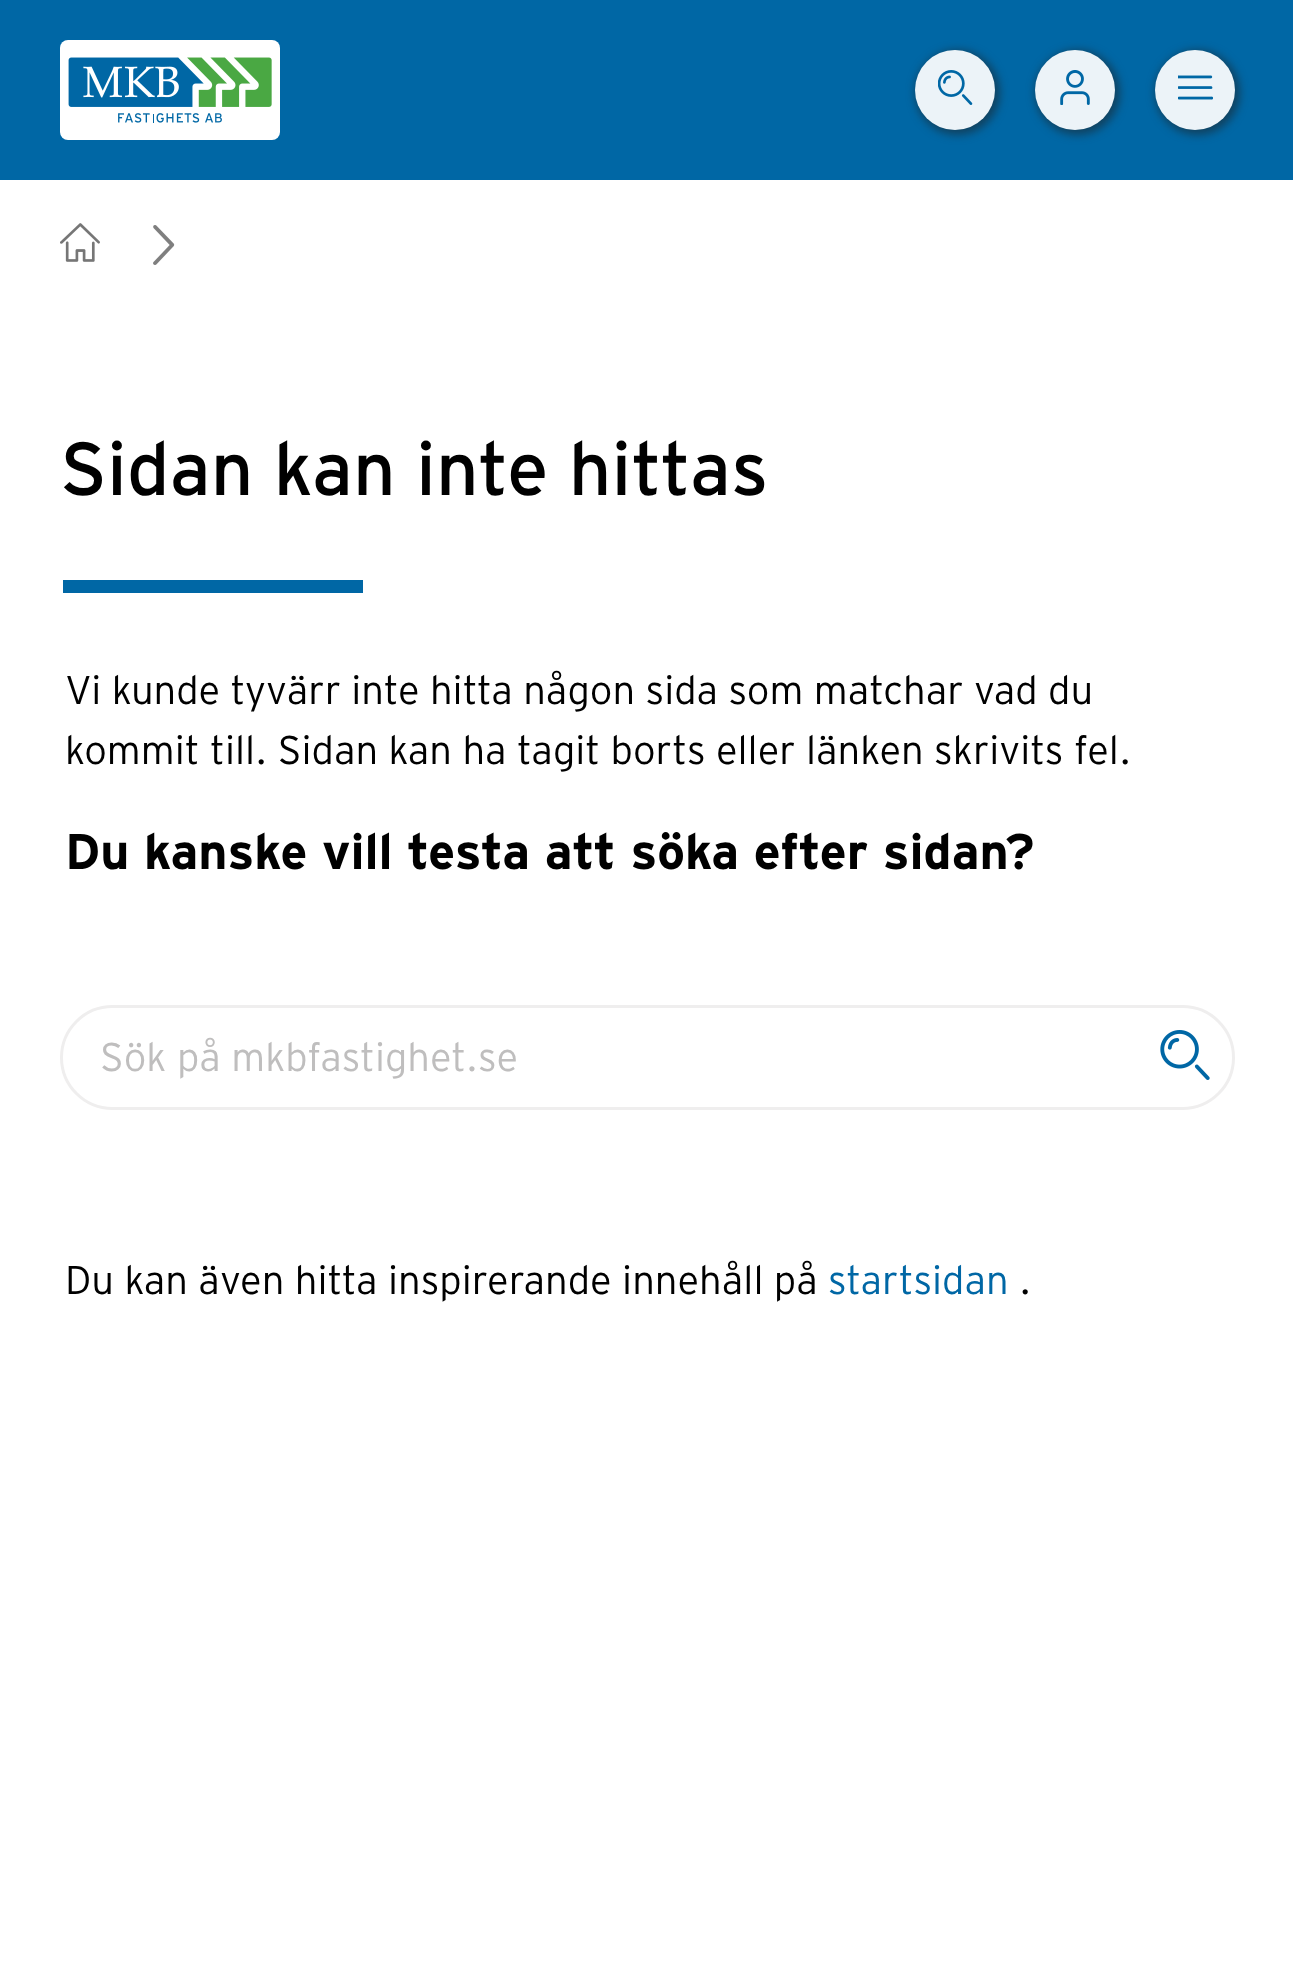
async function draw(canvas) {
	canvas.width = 1293;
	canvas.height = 1969;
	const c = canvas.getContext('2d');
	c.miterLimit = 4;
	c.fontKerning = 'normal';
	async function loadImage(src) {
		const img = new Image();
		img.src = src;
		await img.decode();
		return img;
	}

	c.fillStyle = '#fff';
	c.fillRect(0, 0, 1293, 1969);
	c.fillStyle = '#0067a5';
	c.fillRect(0, 0, 1293, 180);
	c.fillStyle = '#fff';
	c.beginPath();
	c.roundRect(60, 40, 220, 100, 8);
	c.fill();
	c.drawImage(await loadImage('img1.png'), 68, 57, 204, 66);
	c.fillStyle = '#104260';
	c.filter = 'blur(4px)';
	c.beginPath();
	c.roundRect(915, 50, 85, 85, 42.5);
	c.fill();
	c.filter = 'none';
	c.fillStyle = '#ecf3f8';
	c.beginPath();
	c.arc(955, 90, 40, 0, 2 * Math.PI);
	c.fill();
	c.drawImage(await loadImage('img2.png'), 938, 70, 35, 35);
	c.fillStyle = '#104260';
	c.filter = 'blur(4px)';
	c.beginPath();
	c.roundRect(1035, 50, 85, 85, 42.5);
	c.fill();
	c.filter = 'none';
	c.fillStyle = '#ecf3f8';
	c.beginPath();
	c.arc(1075, 90, 40, 0, 2 * Math.PI);
	c.fill();
	c.drawImage(await loadImage('img3.png'), 1060, 70, 30, 35);
	c.fillStyle = '#104260';
	c.filter = 'blur(4px)';
	c.beginPath();
	c.roundRect(1155, 50, 85, 85, 42.5);
	c.fill();
	c.filter = 'none';
	c.fillStyle = '#ecf3f8';
	c.beginPath();
	c.arc(1195, 90, 40, 0, 2 * Math.PI);
	c.fill();
	c.drawImage(await loadImage('img4.png'), 1178, 75, 35, 25);
	c.drawImage(await loadImage('img5.png'), 60, 223, 40, 39);
	c.drawImage(await loadImage('img6.png'), 153, 225, 22, 40);
	c.font = '75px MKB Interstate';
	c.fillStyle = '#000';
	c.fillText('Sidan kan inte hittas', 60, 495);
	c.fillStyle = '#0067a5';
	c.fillRect(63, 580, 300, 13);
	c.font = '500 40px "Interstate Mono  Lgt"';
	c.fillStyle = '#000';
	c.fillText('Vi kunde tyvärr inte hitta någon sida som matchar vad du', 65, 704);
	c.fillText('kommit till. Sidan kan ha tagit borts eller länken skrivits fel.', 65, 764);
	c.font = 'bold 50px MKB Interstate';
	c.fillText('Du kanske vill testa att söka efter sidan?', 65, 869);
	c.beginPath();
	c.roundRect(61.5, 1006.5, 1172, 102, 51);
	c.strokeStyle = '#efeeee';
	c.lineWidth = 3;
	c.stroke();
	c.font = '500 40px "Interstate Mono  Lgt"';
	c.fillStyle = '#bfbebe';
	c.fillText('Sök på mkbfastighet.se', 100, 1071);
	c.drawImage(await loadImage('img7.png'), 1160, 1030, 50, 50);
	c.fillStyle = '#000';
	c.fillText('Du kan även hitta inspirerande innehåll på', 65, 1294);
	c.fillStyle = '#0067a5';
	c.fillText('startsidan', 828, 1294);
	c.fillStyle = '#000';
	c.fillText('.', 1019, 1294);
}

draw(document.querySelector('canvas'));
